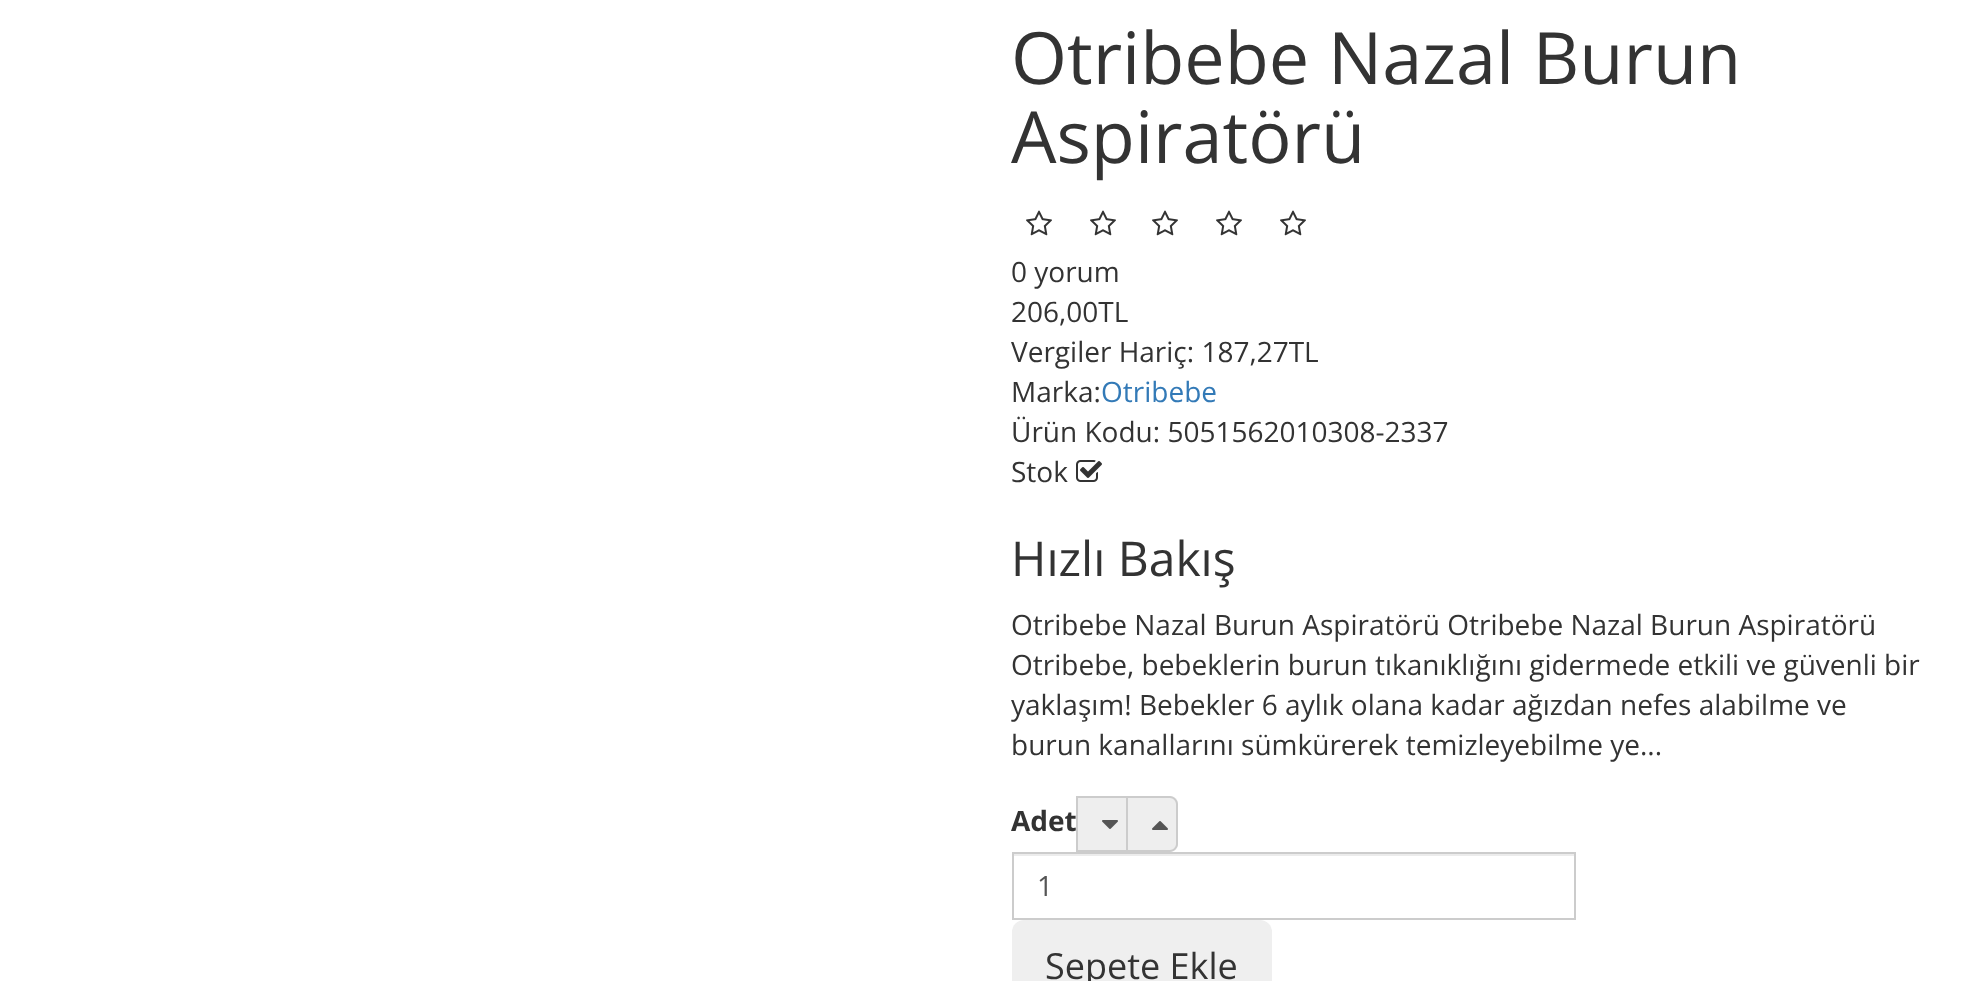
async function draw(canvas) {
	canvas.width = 1962;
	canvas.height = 981;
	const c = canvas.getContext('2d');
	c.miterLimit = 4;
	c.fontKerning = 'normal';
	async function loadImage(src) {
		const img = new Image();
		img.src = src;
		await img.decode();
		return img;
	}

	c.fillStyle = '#fff';
	c.fillRect(0, 0, 1962, 981);
	c.font = '72px Open Sans';
	c.fillStyle = '#333';
	c.fillText('Otribebe Nazal Burun', 1011, 84);
	c.fillText('Aspiratörü', 1011, 163);
	c.drawImage(await loadImage('img1.png'), 1026, 210, 26, 26);
	c.drawImage(await loadImage('img1.png'), 1090, 210, 26, 26);
	c.drawImage(await loadImage('img1.png'), 1152, 210, 26, 26);
	c.drawImage(await loadImage('img1.png'), 1216, 210, 26, 26);
	c.drawImage(await loadImage('img1.png'), 1280, 210, 26, 26);
	c.font = '28px Open Sans';
	for (const [text, x, y] of [
		['0 yorum', 1011, 282],
		['206,00TL', 1011, 322],
		['Vergiler Hariç: 187,27TL', 1011, 362],
		['Marka:', 1011, 402],
	]) {
		c.fillText(text, x, y);
	}
	c.fillStyle = '#337ab7';
	c.fillText('Otribebe', 1101, 402);
	c.fillStyle = '#333';
	c.fillText('Ürün Kodu: 5051562010308-2337', 1011, 442);
	c.fillText('Stok', 1011, 482);
	c.drawImage(await loadImage('img2.png'), 1076, 460, 26, 22);
	c.font = '48px Open Sans';
	c.fillText('Hızlı Bakış', 1011, 576);
	c.font = '28px Open Sans';
	for (const [text, x, y] of [
		['Otribebe Nazal Burun Aspiratörü Otribebe Nazal Burun Aspiratörü', 1011, 635],
		['Otribebe, bebeklerin burun tıkanıklığını gidermede etkili ve güvenli bir', 1011, 675],
		['yaklaşım! Bebekler 6 aylık olana kadar ağızdan nefes alabilme ve', 1011, 715],
		['burun kanallarını sümkürerek temizleyebilme ye...', 1011, 755],
	]) {
		c.fillText(text, x, y);
	}
	c.font = 'bold 28px Open Sans';
	c.fillText('Adet', 1011, 831);
	c.fillStyle = '#eee';
	c.beginPath();
	c.rect(1077, 797, 50, 54);
	c.fill();
	c.strokeStyle = '#ccc';
	c.lineWidth = 2;
	c.stroke();
	c.drawImage(await loadImage('img3.png'), 1102, 820, 16, 9);
	c.beginPath();
	c.roundRect(1128, 796, 50, 56, [0, 8, 8, 0]);
	c.fill();
	c.fillStyle = '#ccc';
	c.beginPath();
	c.moveTo(1128, 796);
	c.lineTo(1170, 796);
	c.bezierCurveTo(1174, 796, 1178, 800, 1178, 804);
	c.lineTo(1178, 844);
	c.bezierCurveTo(1178, 848, 1174, 852, 1170, 852);
	c.lineTo(1128, 852);
	c.closePath();
	c.moveTo(1128, 798);
	c.lineTo(1170, 798);
	c.bezierCurveTo(1173, 798, 1176, 801, 1176, 804);
	c.lineTo(1176, 844);
	c.bezierCurveTo(1176, 847, 1173, 850, 1170, 850);
	c.lineTo(1128, 850);
	c.closePath();
	c.fill('evenodd');
	c.drawImage(await loadImage('img4.png'), 1152, 821, 16, 9);
	c.fillStyle = '#ececec';
	c.fillRect(1014, 854, 560, 2);
	c.strokeRect(1013, 853, 562, 66);
	c.font = '28px Open Sans';
	c.fillStyle = '#555';
	c.fillText('1', 1037, 896);
	c.fillStyle = '#efefef';
	c.beginPath();
	c.roundRect(1012, 920, 260, 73, 12);
	c.fill();
	c.font = '36px Open Sans';
	c.fillStyle = '#333';
	c.fillText('Sepete Ekle', 1045, 979);
}

draw(document.querySelector('canvas'));
